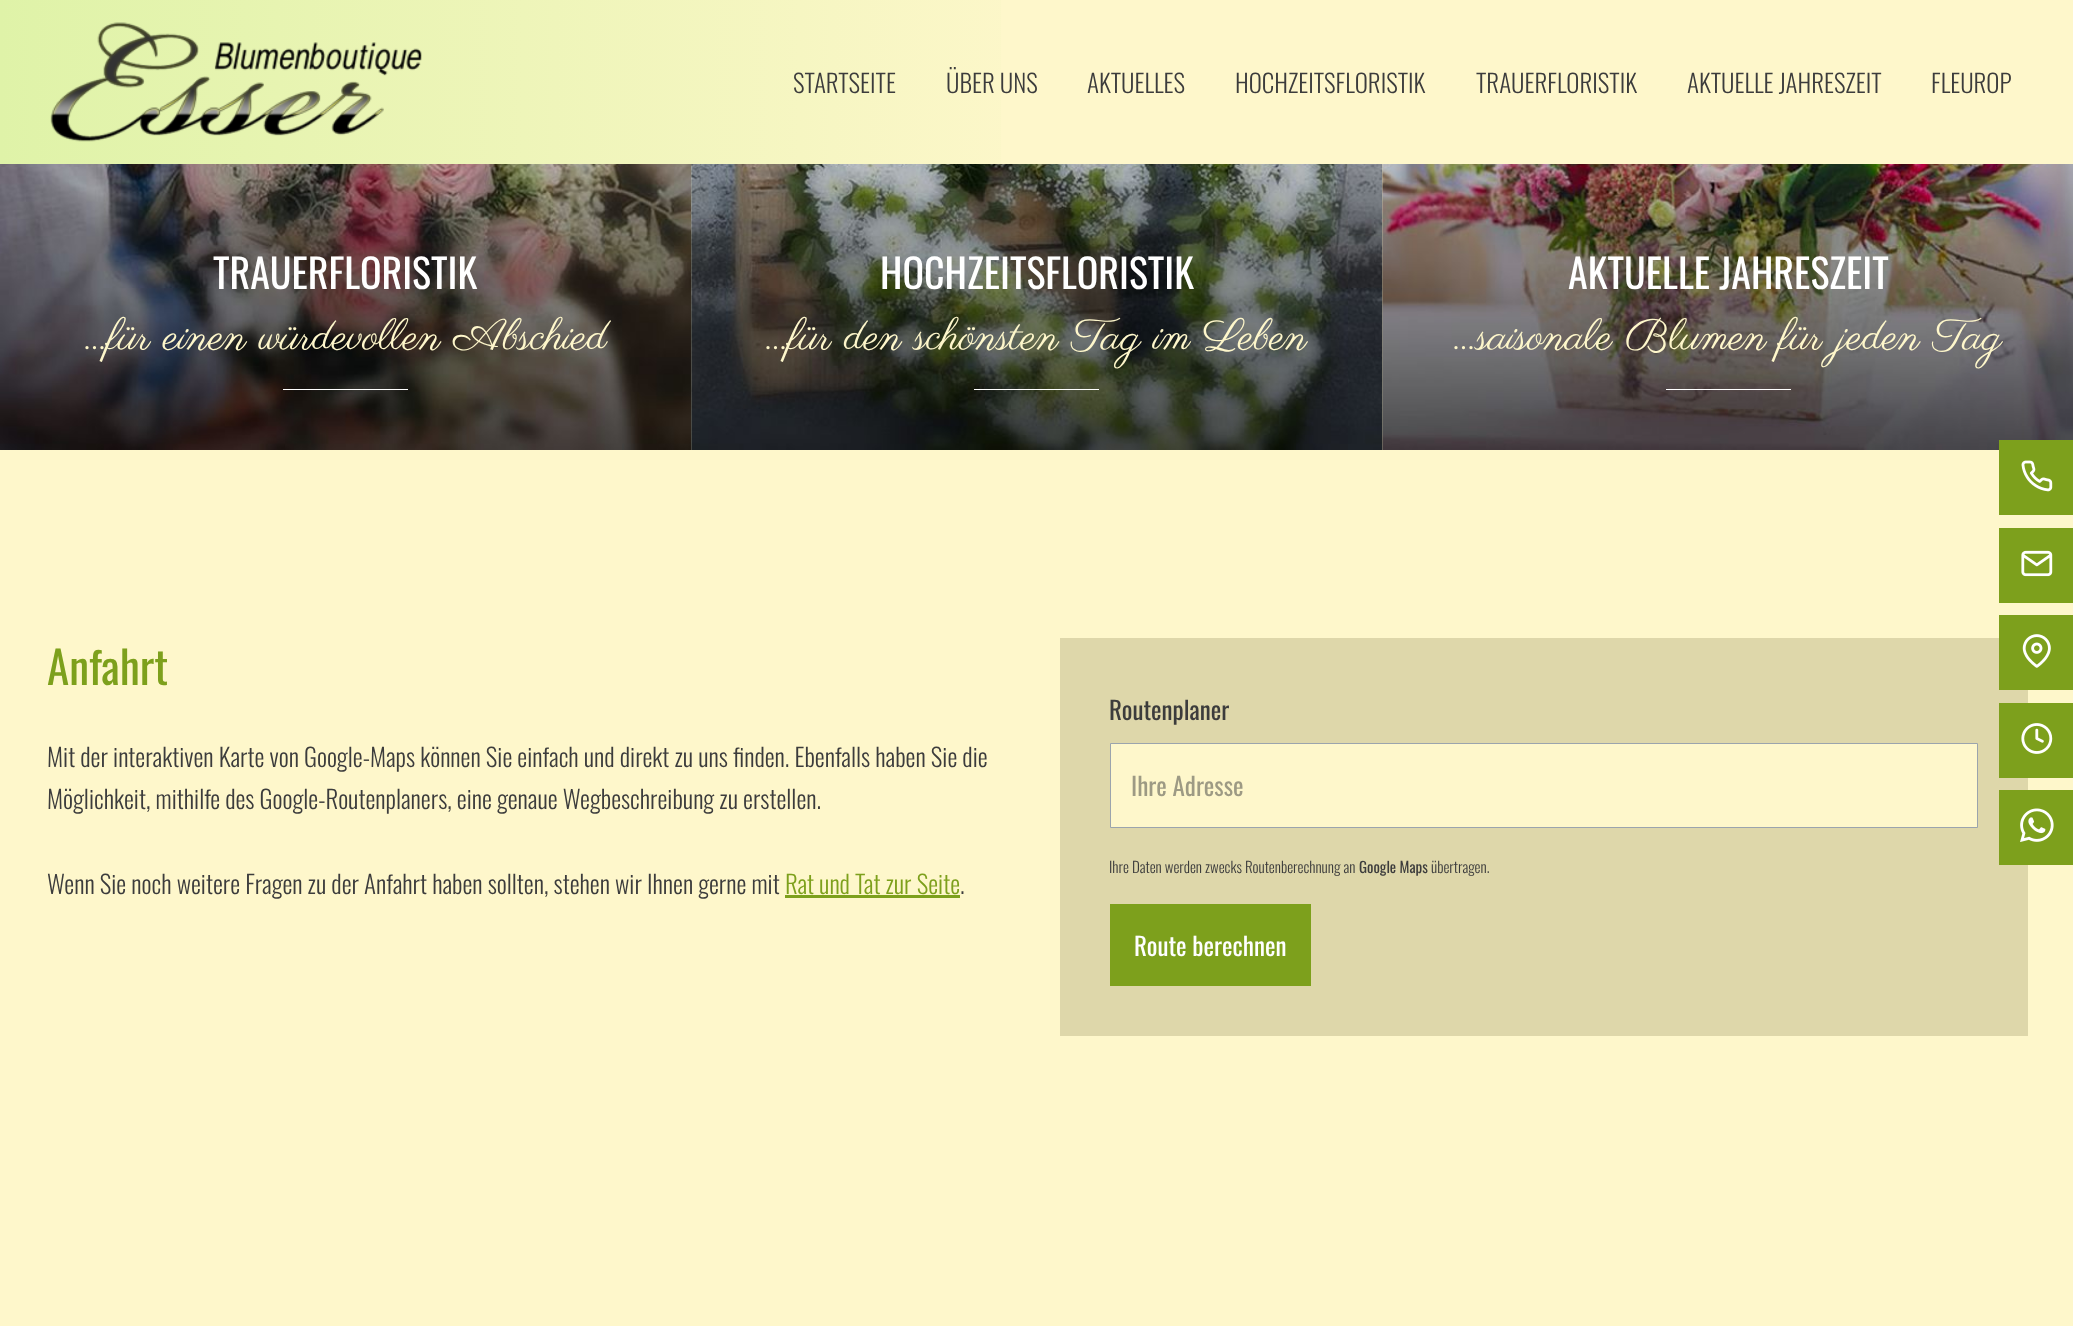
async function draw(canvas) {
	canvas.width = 2073;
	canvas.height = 1326;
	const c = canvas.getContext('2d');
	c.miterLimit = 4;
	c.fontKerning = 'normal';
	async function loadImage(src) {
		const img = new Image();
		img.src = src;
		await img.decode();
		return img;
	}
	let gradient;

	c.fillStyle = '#fef7cb';
	c.fillRect(0, 0, 2073, 1326);
	gradient = c.createLinearGradient(0, 82, 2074, 82);
	gradient.addColorStop(0, '#dff3a8');
	gradient.addColorStop(0.52, '#fef7cb');
	c.fillStyle = gradient;
	c.fillRect(0, 0, 1001, 164);
	c.drawImage(await loadImage('img1.png'), 50, 22, 372, 120);
	c.font = '300 25px Oswald';
	c.fillStyle = '#3c3c3c';
	for (const [text, x, y] of [
		['STARTSEITE', 793, 93],
		['ÜBER UNS', 946, 93],
		['AKTUELLES', 1087, 93],
		['HOCHZEITSFLORISTIK', 1235, 93],
		['TRAUERFLORISTIK', 1476, 93],
		['AKTUELLE JAHRESZEIT', 1687, 93],
		['FLEUROP', 1931, 93],
	]) {
		c.fillText(text, x, y);
	}
	c.drawImage(await loadImage('img2.png'), 0, 164, 692, 286);
	c.font = '40px Oswald';
	c.fillStyle = '#fff';
	c.fillText('TRAUERFLORISTIK', 213, 289);
	c.font = '43.75px Parisienne';
	c.fillStyle = '#fef7cb';
	c.fillText('...für einen würdevollen Abschied', 85, 349);
	c.fillStyle = '#fff';
	c.fillRect(283, 389, 125, 1);
	c.drawImage(await loadImage('img3.png'), 691, 164, 692, 286);
	c.font = '40px Oswald';
	c.fillText('HOCHZEITSFLORISTIK', 880, 289);
	c.font = '43.75px Parisienne';
	c.fillStyle = '#fef7cb';
	c.fillText('...für den schönsten Tag im Leben', 766, 349);
	c.fillStyle = '#fff';
	c.fillRect(974, 389, 125, 1);
	c.drawImage(await loadImage('img4.png'), 1382, 164, 691, 286);
	c.font = '40px Oswald';
	c.fillText('AKTUELLE JAHRESZEIT', 1568, 289);
	c.font = '43.75px Parisienne';
	c.fillStyle = '#fef7cb';
	c.fillText('...saisonale Blumen für jeden Tag', 1454, 349);
	c.fillStyle = '#fff';
	c.fillRect(1666, 389, 125, 1);
	c.font = '45px Oswald';
	c.fillStyle = '#7da01c';
	c.fillText('Anfahrt', 47, 685);
	c.font = '300 25px Oswald';
	c.fillStyle = '#3c3c3c';
	for (const [text, x, y] of [
		['Mit der interaktiven Karte von Google-Maps können Sie einfach und direkt zu uns finden. Ebenfalls haben Sie die', 47, 767],
		['Möglichkeit, mithilfe des Google-Routenplaners, eine genaue Wegbeschreibung zu erstellen.', 47, 809],
		['Wenn Sie noch weitere Fragen zu der Anfahrt haben sollten, stehen wir Ihnen gerne mit', 47, 894],
	]) {
		c.fillText(text, x, y);
	}
	c.fillStyle = '#7da01c';
	c.fillText('Rat und Tat zur Seite', 785, 894);
	c.fillRect(785, 895, 175, 3);
	c.fillStyle = '#3c3c3c';
	c.fillText('.', 960, 894);
	c.fillStyle = '#ded7aa';
	c.fillRect(1060, 638, 968, 398);
	c.font = '25px Oswald';
	c.fillStyle = '#3c3c3c';
	c.fillText('Routenplaner', 1109, 720);
	c.fillStyle = '#fef7cb';
	c.beginPath();
	c.rect(1110.5, 743.5, 867, 84);
	c.fill();
	c.strokeStyle = '#9ba4ad';
	c.stroke();
	c.fillStyle = '#9d9a84';
	c.fillText('Ihre Adresse', 1131, 796);
	c.font = '300 15px Oswald';
	c.fillStyle = '#3c3c3c';
	c.fillText('Ihre Daten werden zwecks Routenberechnung an', 1109, 873);
	c.font = '15px Oswald';
	c.fillText('Google Maps', 1359, 873);
	c.font = '300 15px Oswald';
	c.fillText('übertragen.', 1431, 873);
	c.fillStyle = '#7da01c';
	c.fillRect(1110, 904, 201, 82);
	c.font = '25px Oswald';
	c.fillStyle = '#fff';
	c.fillText('Route berechnen', 1134, 956);
	c.fillStyle = '#7da01c';
	c.fillRect(1999, 440, 74, 75);
	c.drawImage(await loadImage('img5.png'), 2021, 460, 32, 32);
	c.fillRect(1999, 528, 74, 75);
	c.drawImage(await loadImage('img6.png'), 2021, 550, 32, 27);
	c.fillRect(1999, 615, 74, 75);
	c.drawImage(await loadImage('img7.png'), 2022, 634, 29, 34);
	c.fillRect(1999, 703, 74, 75);
	c.drawImage(await loadImage('img8.png'), 2021, 723, 32, 31);
	c.fillRect(1999, 790, 74, 75);
	c.drawImage(await loadImage('img9.png'), 2020, 808, 34, 34);
}

draw(document.querySelector('canvas'));
